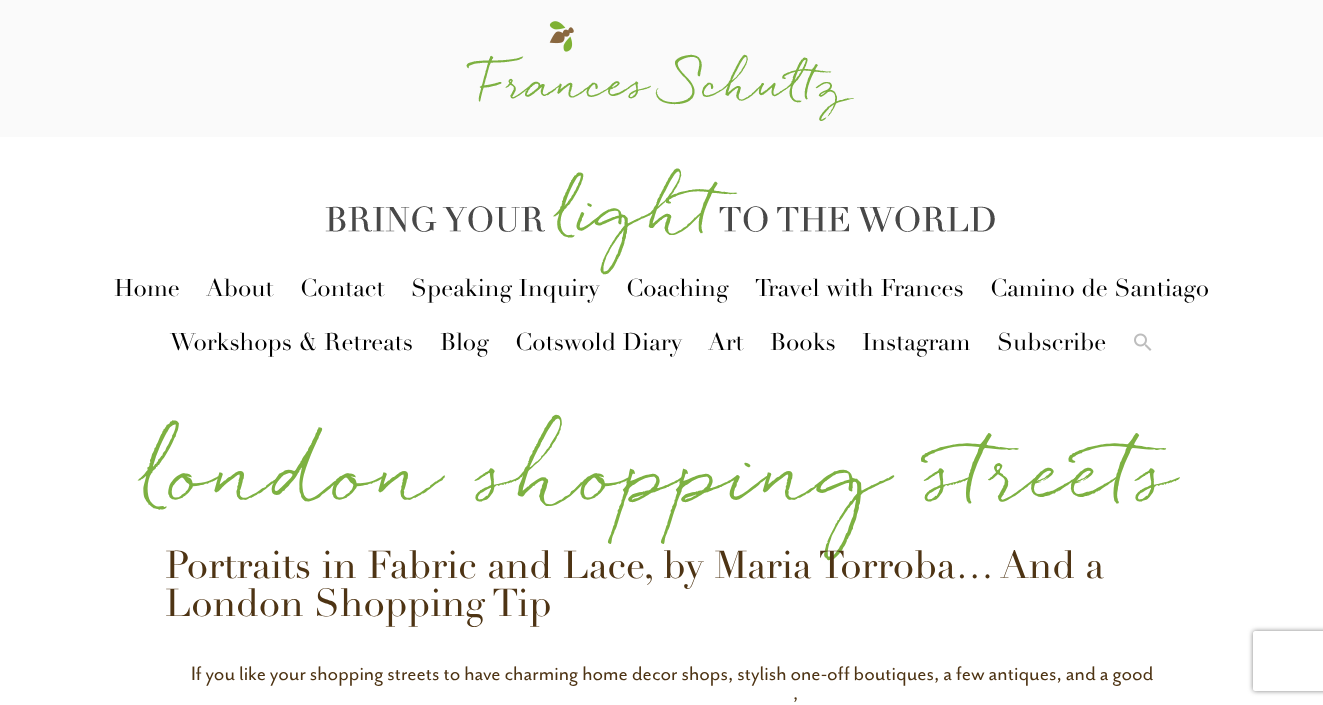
async function draw(canvas) {
	canvas.width = 1323;
	canvas.height = 705;
	const c = canvas.getContext('2d');
	c.miterLimit = 4;
	c.fontKerning = 'normal';
	async function loadImage(src) {
		const img = new Image();
		img.src = src;
		await img.decode();
		return img;
	}

	c.fillStyle = '#fff';
	c.fillRect(0, 0, 1323, 705);
	c.fillStyle = '#fafafa';
	c.fillRect(0, 0, 1323, 137);
	c.drawImage(await loadImage('img1.png'), 466, 21, 388, 100);
	c.drawImage(await loadImage('img2.png'), 325, 168, 670, 107);
	c.font = '24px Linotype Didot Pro';
	c.fillStyle = '#000';
	for (const [text, x, y] of [
		['Home', 114, 296],
		['About', 206, 296],
		['Contact', 300, 296],
		['Speaking Inquiry', 411, 296],
		['Coaching', 626, 296],
		['Travel with Frances', 755, 296],
		['Camino de Santiago', 990, 296],
		['Workshops & Retreats', 170, 350],
		['Blog', 440, 350],
		['Cotswold Diary', 515, 350],
		['Art', 708, 350],
		['Books', 770, 350],
		['Instagram', 862, 350],
		['Subscribe', 997, 350],
	]) {
		c.fillText(text, x, y);
	}
	c.drawImage(await loadImage('img3.png'), 1134, 333, 18, 18);
	c.font = '88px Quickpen';
	c.fillStyle = '#7db141';
	c.fillText('london shopping streets', 143, 501);
	c.font = '38.4px Linotype Didot Pro';
	c.fillStyle = '#4e3414';
	c.fillText('Portraits in Fabric and Lace, by Maria Torroba… And a', 165, 578);
	c.fillText('London Shopping Tip', 165, 616);
	c.font = '22.4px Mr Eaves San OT';
	c.fillText('If you like your shopping streets to have charming home decor shops, stylish one-off boutiques, a few antiques, and a good', 191, 680);
	c.fillText('’', 793, 711);
	c.save();
	c.beginPath();
	c.moveTo(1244, 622);
	c.lineTo(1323, 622);
	c.lineTo(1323, 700);
	c.lineTo(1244, 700);
	c.closePath();
	c.moveTo(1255, 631);
	c.lineTo(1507, 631);
	c.bezierCurveTo(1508, 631, 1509, 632, 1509, 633);
	c.lineTo(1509, 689);
	c.bezierCurveTo(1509, 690, 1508, 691, 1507, 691);
	c.lineTo(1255, 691);
	c.bezierCurveTo(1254, 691, 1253, 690, 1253, 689);
	c.lineTo(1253, 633);
	c.bezierCurveTo(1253, 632, 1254, 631, 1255, 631);
	c.closePath();
	c.clip('evenodd');
	c.fillStyle = '#808080';
	c.filter = 'blur(2.5px)';
	c.beginPath();
	c.roundRect(1253, 631, 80, 60, 2);
	c.fill();
	c.filter = 'none';
	c.restore();
}

draw(document.querySelector('canvas'));
